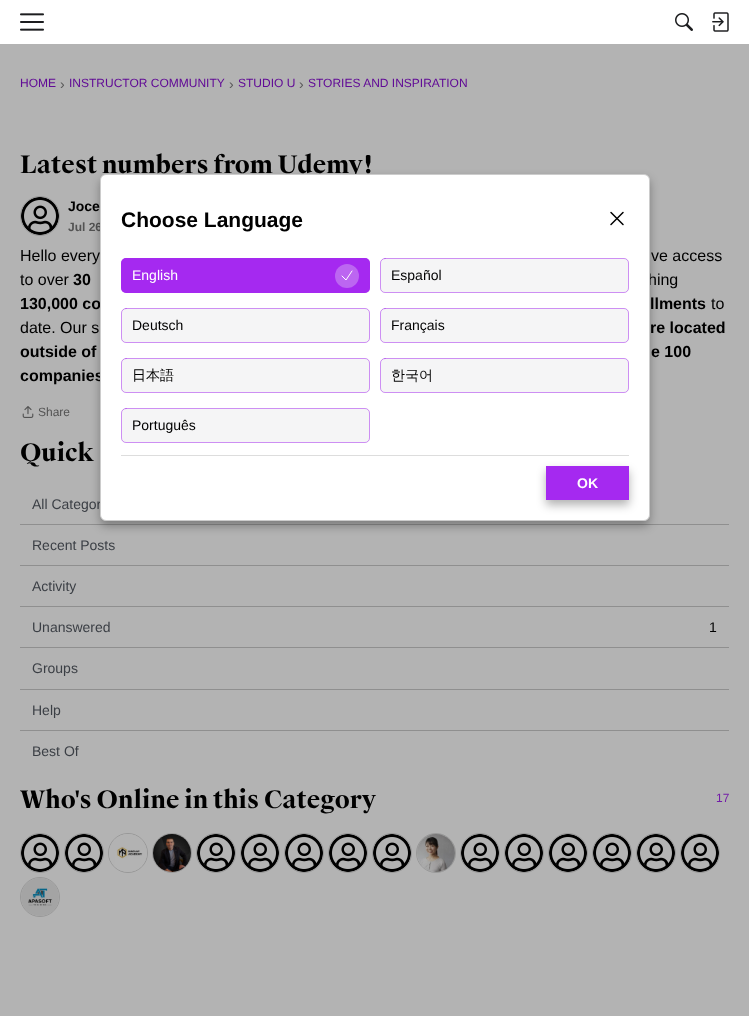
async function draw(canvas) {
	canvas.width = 749;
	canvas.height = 1016;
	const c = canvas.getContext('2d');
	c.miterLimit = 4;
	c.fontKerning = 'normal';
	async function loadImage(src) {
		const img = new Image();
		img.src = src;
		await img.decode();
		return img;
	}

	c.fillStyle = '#b3b3b3';
	c.fillRect(0, 0, 749, 1016);
	c.fillStyle = '#fff';
	c.fillRect(0, 0, 749, 44);
	c.drawImage(await loadImage('img1.png'), 20, 13, 24, 18);
	c.drawImage(await loadImage('img2.png'), 675, 13, 18, 18);
	c.drawImage(await loadImage('img3.png'), 712, 12, 17, 20);
	c.font = '12px Liberation Sans';
	c.fillStyle = '#610b96';
	c.fillText('HOME', 20, 87);
	c.font = '14px Liberation Sans';
	c.fillStyle = '#5a5a5a';
	c.fillText('›', 60, 89);
	c.font = '12px Liberation Sans';
	c.fillStyle = '#610b96';
	c.fillText('INSTRUCTOR COMMUNITY', 69, 87);
	c.font = '14px Liberation Sans';
	c.fillStyle = '#5a5a5a';
	c.fillText('›', 229, 89);
	c.font = '12px Liberation Sans';
	c.fillStyle = '#610b96';
	c.fillText('STUDIO U', 238, 87);
	c.font = '14px Liberation Sans';
	c.fillStyle = '#5a5a5a';
	c.fillText('›', 299, 89);
	c.font = '12px Liberation Sans';
	c.fillStyle = '#610b96';
	c.fillText('STORIES AND INSPIRATION', 308, 87);
	c.font = 'bold 24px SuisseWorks';
	c.fillStyle = '#000';
	c.fillText('Latest numbers from Udemy!', 20, 173);
	c.beginPath();
	c.arc(40, 216, 19.5, 0, 2 * Math.PI);
	c.strokeStyle = '#989898';
	c.stroke();
	c.drawImage(await loadImage('img4.png'), 21, 197, 38, 38);
	c.font = 'bold 14px Liberation Sans';
	c.fillText('Joce', 68, 211);
	c.font = 'bold 12px Liberation Sans';
	c.fillStyle = '#535353';
	c.fillText('Jul 26', 68, 231);
	c.font = '16px Liberation Sans';
	c.fillStyle = '#000';
	for (const [text, x, y] of [
		['Hello every', 20, 261],
		['ve access', 651, 261],
		['to over', 20, 285],
	]) {
		c.fillText(text, x, y);
	}
	c.font = 'bold 16px Liberation Sans';
	c.fillText('30', 73, 285);
	c.font = '16px Liberation Sans';
	c.fillText('hing', 648, 285);
	c.font = 'bold 16px Liberation Sans';
	c.fillText('130,000 co', 20, 309);
	c.fillText('llments', 650, 309);
	c.font = '16px Liberation Sans';
	c.fillText('to', 711, 309);
	c.fillText('date. Our s', 20, 333);
	c.font = 'bold 16px Liberation Sans';
	for (const [text, x, y] of [
		['re located', 650, 333],
		['outside of', 20, 357],
		['e 100', 651, 357],
		['companies', 20, 381],
	]) {
		c.fillText(text, x, y);
	}
	c.drawImage(await loadImage('img5.png'), 22, 406, 12, 12);
	c.font = '12px Liberation Sans';
	c.fillStyle = '#535353';
	c.fillText('Share', 38, 416);
	c.font = 'bold 24px SuisseWorks';
	c.fillStyle = '#000';
	c.fillText('Quick', 20, 461);
	c.fillStyle = '#8f8f8f';
	c.fillRect(20, 524, 709, 1);
	c.font = '14px Liberation Sans';
	c.fillStyle = '#3b3f45';
	c.fillText('All Categor', 32, 509);
	c.fillStyle = '#8f8f8f';
	c.fillRect(20, 565, 709, 1);
	c.fillStyle = '#3b3f45';
	c.fillText('Recent Posts', 32, 550);
	c.fillStyle = '#8f8f8f';
	c.fillRect(20, 606, 709, 1);
	c.fillStyle = '#3b3f45';
	c.fillText('Activity', 32, 591);
	c.fillStyle = '#8f8f8f';
	c.fillRect(20, 647, 709, 1);
	c.fillStyle = '#3b3f45';
	c.fillText('Unanswered', 32, 632);
	c.fillStyle = '#000';
	c.fillText('1', 709, 632);
	c.fillStyle = '#8f8f8f';
	c.fillRect(20, 689, 709, 1);
	c.fillStyle = '#3b3f45';
	c.fillText('Groups', 32, 673);
	c.fillStyle = '#8f8f8f';
	c.fillRect(20, 730, 709, 1);
	c.fillStyle = '#3b3f45';
	c.fillText('Help', 32, 715);
	c.fillText('Best Of', 32, 756);
	c.font = 'bold 24px SuisseWorks';
	c.fillStyle = '#000';
	c.fillText('Who\'s Online in this Category', 20, 808);
	c.font = '12px Liberation Sans';
	c.fillStyle = '#731da8';
	c.fillText('17', 716, 802);
	c.beginPath();
	c.arc(40, 853, 19.5, 0, 2 * Math.PI);
	c.stroke();
	c.drawImage(await loadImage('img4.png'), 21, 834, 38, 38);
	c.beginPath();
	c.arc(84, 853, 19.5, 0, 2 * Math.PI);
	c.stroke();
	c.drawImage(await loadImage('img4.png'), 65, 834, 38, 38);
	c.beginPath();
	c.arc(128, 853, 19.5, 0, 2 * Math.PI);
	c.stroke();
	c.drawImage(await loadImage('img6.png'), 109, 834, 38, 38);
	c.beginPath();
	c.arc(172, 853, 19.5, 0, 2 * Math.PI);
	c.stroke();
	c.drawImage(await loadImage('img7.png'), 153, 834, 38, 38);
	c.beginPath();
	c.arc(216, 853, 19.5, 0, 2 * Math.PI);
	c.stroke();
	c.drawImage(await loadImage('img4.png'), 197, 834, 38, 38);
	c.beginPath();
	c.arc(260, 853, 19.5, 0, 2 * Math.PI);
	c.stroke();
	c.drawImage(await loadImage('img4.png'), 241, 834, 38, 38);
	c.beginPath();
	c.arc(304, 853, 19.5, 0, 2 * Math.PI);
	c.stroke();
	c.drawImage(await loadImage('img4.png'), 285, 834, 38, 38);
	c.beginPath();
	c.arc(348, 853, 19.5, 0, 2 * Math.PI);
	c.stroke();
	c.drawImage(await loadImage('img4.png'), 329, 834, 38, 38);
	c.beginPath();
	c.arc(392, 853, 19.5, 0, 2 * Math.PI);
	c.stroke();
	c.drawImage(await loadImage('img4.png'), 373, 834, 38, 38);
	c.beginPath();
	c.arc(436, 853, 19.5, 0, 2 * Math.PI);
	c.stroke();
	c.drawImage(await loadImage('img8.png'), 417, 834, 38, 38);
	c.beginPath();
	c.arc(480, 853, 19.5, 0, 2 * Math.PI);
	c.stroke();
	c.drawImage(await loadImage('img4.png'), 461, 834, 38, 38);
	c.beginPath();
	c.arc(524, 853, 19.5, 0, 2 * Math.PI);
	c.stroke();
	c.drawImage(await loadImage('img4.png'), 505, 834, 38, 38);
	c.beginPath();
	c.arc(568, 853, 19.5, 0, 2 * Math.PI);
	c.stroke();
	c.drawImage(await loadImage('img4.png'), 549, 834, 38, 38);
	c.beginPath();
	c.arc(612, 853, 19.5, 0, 2 * Math.PI);
	c.stroke();
	c.drawImage(await loadImage('img4.png'), 593, 834, 38, 38);
	c.beginPath();
	c.arc(656, 853, 19.5, 0, 2 * Math.PI);
	c.stroke();
	c.drawImage(await loadImage('img4.png'), 637, 834, 38, 38);
	c.beginPath();
	c.arc(700, 853, 19.5, 0, 2 * Math.PI);
	c.stroke();
	c.drawImage(await loadImage('img4.png'), 681, 834, 38, 38);
	c.beginPath();
	c.arc(40, 897, 19.5, 0, 2 * Math.PI);
	c.stroke();
	c.drawImage(await loadImage('img9.png'), 21, 878, 38, 38);
	c.fillStyle = '#0000004d';
	c.filter = 'blur(5px)';
	c.beginPath();
	c.roundRect(100, 179, 550, 347, 6);
	c.fill();
	c.filter = 'none';
	c.fillStyle = '#fff';
	c.beginPath();
	c.roundRect(100.5, 174.5, 549, 346, 5.5);
	c.fill();
	c.strokeStyle = '#ccc';
	c.stroke();
	c.font = 'bold 21px Liberation Sans';
	c.fillStyle = '#000';
	c.fillText('Choose Language', 121, 227);
	c.beginPath();
	c.moveTo(611, 224.5);
	c.lineTo(623, 212.5);
	c.moveTo(611, 212.5);
	c.lineTo(623, 224.5);
	c.strokeStyle = '#000';
	c.lineWidth = 1.5;
	c.lineCap = 'round';
	c.lineJoin = 'round';
	c.stroke();
	c.fillStyle = '#a529f0';
	c.beginPath();
	c.roundRect(121, 258, 249, 35, 5);
	c.fill();
	c.beginPath();
	c.roundRect(121.5, 258.5, 248, 34, 4.5);
	c.strokeStyle = '#a529f080';
	c.lineWidth = 1;
	c.lineJoin = 'miter';
	c.stroke();
	c.font = '14px Liberation Sans';
	c.fillStyle = '#fff';
	c.fillText('English', 132, 280);
	c.fillStyle = '#bc66f1';
	c.beginPath();
	c.arc(347, 276, 12, 0, 2 * Math.PI);
	c.fill();
	c.beginPath();
	c.moveTo(342, 276);
	c.lineTo(346, 280);
	c.lineTo(352, 271);
	c.strokeStyle = '#fff';
	c.lineJoin = 'round';
	c.stroke();
	c.fillStyle = '#f5f5f6';
	c.beginPath();
	c.roundRect(380, 258, 249, 35, 5);
	c.fill();
	c.beginPath();
	c.roundRect(380.5, 258.5, 248, 34, 4.5);
	c.strokeStyle = '#a529f080';
	c.lineJoin = 'miter';
	c.stroke();
	c.fillStyle = '#000';
	c.fillText('Español', 391, 280);
	c.fillStyle = '#f5f5f6';
	c.beginPath();
	c.roundRect(121, 308, 249, 35, 5);
	c.fill();
	c.beginPath();
	c.roundRect(121.5, 308.5, 248, 34, 4.5);
	c.stroke();
	c.fillStyle = '#000';
	c.fillText('Deutsch', 132, 330);
	c.fillStyle = '#f5f5f6';
	c.beginPath();
	c.roundRect(380, 308, 249, 35, 5);
	c.fill();
	c.beginPath();
	c.roundRect(380.5, 308.5, 248, 34, 4.5);
	c.stroke();
	c.fillStyle = '#000';
	c.fillText('Français', 391, 330);
	c.fillStyle = '#f5f5f6';
	c.beginPath();
	c.roundRect(121, 358, 249, 35, 5);
	c.fill();
	c.beginPath();
	c.roundRect(121.5, 358.5, 248, 34, 4.5);
	c.stroke();
	c.font = '500 14px WenQuanYi Zen Hei';
	c.fillStyle = '#000';
	c.fillText('日本語', 132, 380);
	c.fillStyle = '#f5f5f6';
	c.beginPath();
	c.roundRect(380, 358, 249, 35, 5);
	c.fill();
	c.beginPath();
	c.roundRect(380.5, 358.5, 248, 34, 4.5);
	c.stroke();
	c.fillStyle = '#000';
	c.fillText('한국어', 391, 380);
	c.fillStyle = '#f5f5f6';
	c.beginPath();
	c.roundRect(121, 408, 249, 35, 5);
	c.fill();
	c.beginPath();
	c.roundRect(121.5, 408.5, 248, 34, 4.5);
	c.stroke();
	c.font = '14px Liberation Sans';
	c.fillStyle = '#000';
	c.fillText('Português', 132, 430);
	c.fillStyle = '#ddd';
	c.fillRect(121, 455, 508, 1);
	c.fillStyle = '#0000004d';
	c.filter = 'blur(5px)';
	c.beginPath();
	c.rect(546, 471, 83, 34);
	c.fill();
	c.filter = 'none';
	c.fillStyle = '#a529f0';
	c.fillRect(546, 466, 83, 34);
	c.font = 'bold 14px Liberation Sans';
	c.fillStyle = '#fff';
	c.fillText('OK', 577, 488);
}

draw(document.querySelector('canvas'));
